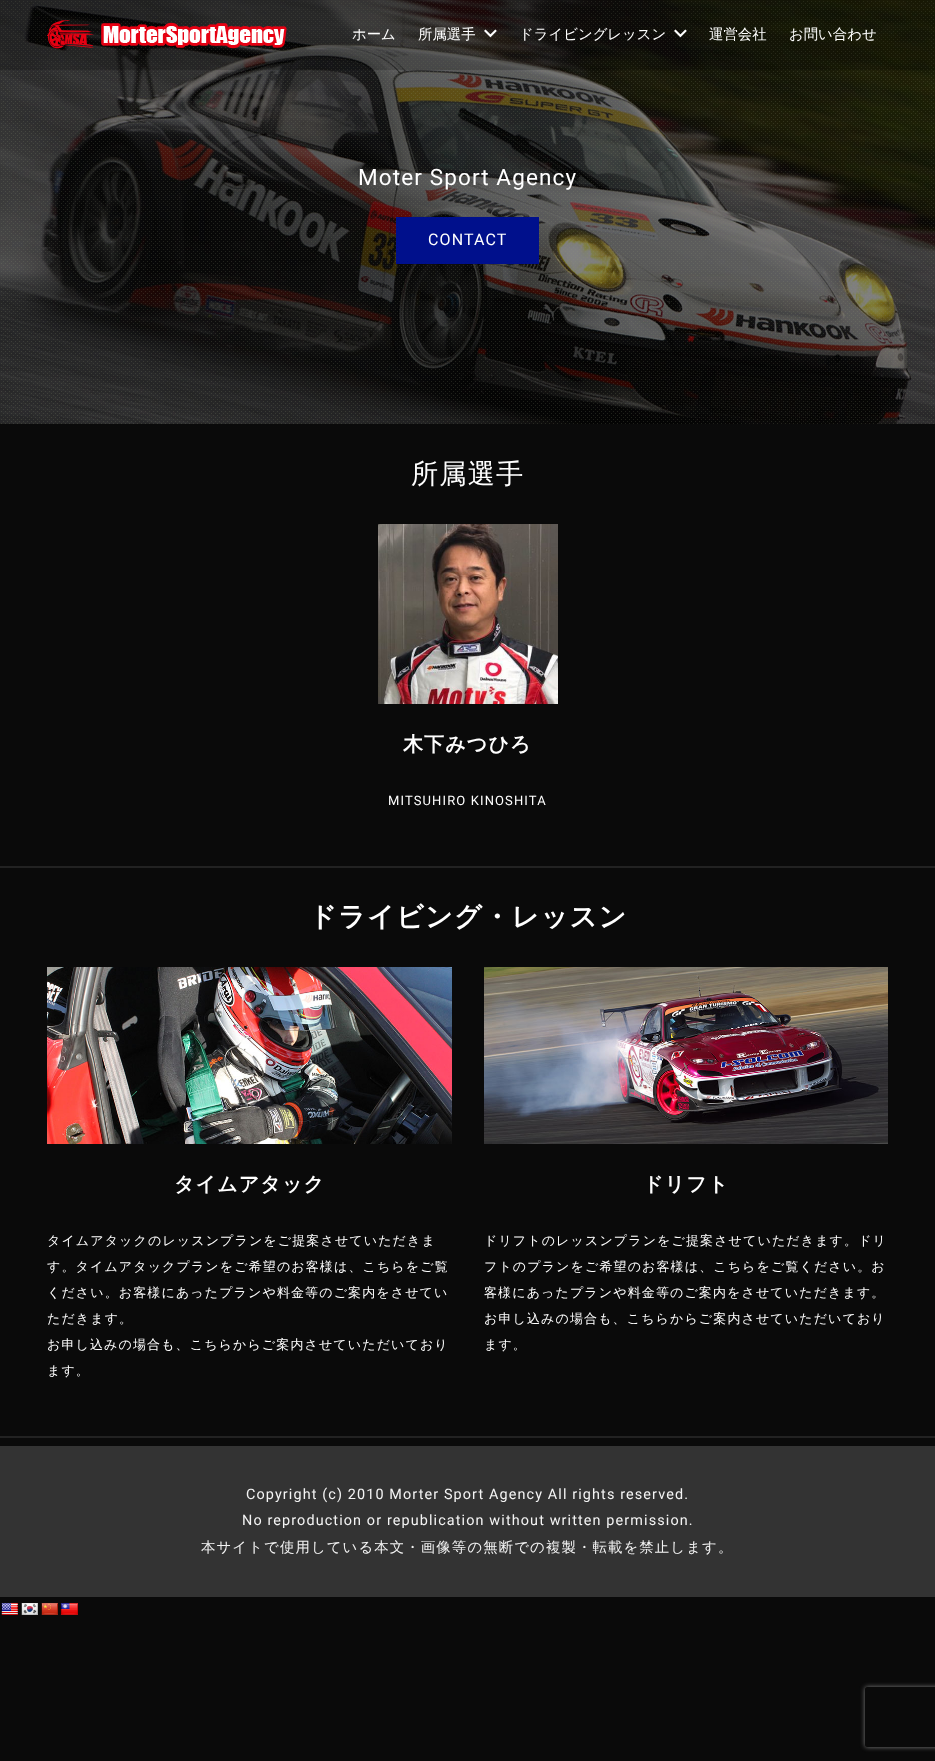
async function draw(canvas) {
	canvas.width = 935;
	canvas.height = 1761;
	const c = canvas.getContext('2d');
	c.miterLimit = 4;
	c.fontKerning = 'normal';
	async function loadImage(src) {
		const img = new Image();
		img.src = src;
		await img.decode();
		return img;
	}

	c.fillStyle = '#0a0a0a';
	c.fillRect(0, 0, 935, 1761);
	c.drawImage(await loadImage('img4.png'), 0, 0, 935, 424);
	c.drawImage(await loadImage('img5.png'), 1, 1, 933, 423);
	c.fillStyle = '#00000033';
	c.fillRect(0, 0, 935, 70);
	c.drawImage(await loadImage('img1.png'), 47, 20, 240, 29);
	c.font = '500 14.4px WenQuanYi Zen Hei';
	c.fillStyle = '#fff';
	c.fillText('ホーム', 352, 39);
	c.fillText('所属選手', 418, 39);
	c.drawImage(await loadImage('img2.png'), 484, 29, 13, 9);
	c.fillText('ドライビングレッスン', 519, 39);
	c.drawImage(await loadImage('img3.png'), 674, 29, 13, 9);
	c.fillText('運営会社', 709, 39);
	c.fillText('お問い合わせ', 789, 39);
	c.letterSpacing = '1.12px';
	c.font = '22.5px Roboto';
	c.fillText('Moter Sport Agency', 358, 185);
	c.fillStyle = '#00108c';
	c.fillRect(396, 217, 143, 47);
	c.font = '16px Roboto';
	c.fillStyle = '#fff';
	c.fillText('CONTACT', 428, 245);
	c.font = '500 27.25px WenQuanYi Zen Hei';
	c.fillText('所属選手', 411, 483);
	c.drawImage(await loadImage('img6.png'), 378, 524, 180, 180);
	c.font = 'bold 20px WenQuanYi Zen Hei';
	c.fillText('木下みつひろ', 403, 751);
	c.font = '13px Roboto';
	c.fillText('MITSUHIRO KINOSHITA', 388, 805);
	c.fillStyle = '#222';
	c.fillRect(0, 866, 935, 2);
	c.font = 'bold 27.25px WenQuanYi Zen Hei';
	c.fillStyle = '#fff';
	c.fillText('ドライビング・レッスン', 309, 926);
	c.drawImage(await loadImage('img7.png'), 47, 967, 405, 177);
	c.font = 'bold 20px WenQuanYi Zen Hei';
	c.fillText('タイムアタック', 174, 1191);
	c.font = '500 13px WenQuanYi Zen Hei';
	for (const [text, x, y] of [
		['タイムアタックのレッスンプランをご提案させていただきま', 47, 1245],
		['す。タイムアタックプランをご希望のお客様は、こちらをご覧', 47, 1271],
		['ください。お客様にあったプランや料金等のご案内をさせてい', 47, 1297],
		['ただきます。', 47, 1323],
		['お申し込みの場合も、こちらからご案内させていただいており', 47, 1349],
		['ます。', 47, 1375],
	]) {
		c.fillText(text, x, y);
	}
	c.drawImage(await loadImage('img8.png'), 484, 967, 404, 177);
	c.font = 'bold 20px WenQuanYi Zen Hei';
	c.fillText('ドリフト', 643, 1191);
	c.font = '500 13px WenQuanYi Zen Hei';
	for (const [text, x, y] of [
		['ドリフトのレッスンプランをご提案させていただきます。ドリ', 484, 1245],
		['フトのプランをご希望のお客様は、こちらをご覧ください。お', 484, 1271],
		['客様にあったプランや料金等のご案内をさせていただきます。', 484, 1297],
		['お申し込みの場合も、こちらからご案内させていただいており', 484, 1323],
		['ます。', 484, 1349],
	]) {
		c.fillText(text, x, y);
	}
	c.fillStyle = '#222';
	c.fillRect(0, 1436, 935, 2);
	c.fillStyle = '#333';
	c.fillRect(0, 1446, 935, 151);
	c.font = '14.4px Roboto';
	c.fillStyle = '#f4f4f4';
	c.fillText('Copyright (c) 2010 Morter Sport Agency All rights reserved.', 246, 1499);
	c.fillText('No reproduction or republication without written permission.', 242, 1525);
	c.font = '500 14.4px WenQuanYi Zen Hei';
	c.fillText('本サイトで使用している本文・画像等の無断での複製・転載を禁止します。', 201, 1552);
	c.drawImage(await loadImage('img9.png'), 1, 1603, 17, 12);
	c.drawImage(await loadImage('img10.png'), 21, 1603, 17, 12);
	c.drawImage(await loadImage('img11.png'), 41, 1603, 17, 12);
	c.drawImage(await loadImage('img12.png'), 60, 1603, 18, 12);
	c.save();
	c.beginPath();
	c.moveTo(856, 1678);
	c.lineTo(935, 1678);
	c.lineTo(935, 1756);
	c.lineTo(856, 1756);
	c.closePath();
	c.moveTo(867, 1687);
	c.lineTo(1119, 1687);
	c.bezierCurveTo(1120, 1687, 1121, 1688, 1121, 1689);
	c.lineTo(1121, 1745);
	c.bezierCurveTo(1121, 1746, 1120, 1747, 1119, 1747);
	c.lineTo(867, 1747);
	c.bezierCurveTo(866, 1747, 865, 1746, 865, 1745);
	c.lineTo(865, 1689);
	c.bezierCurveTo(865, 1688, 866, 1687, 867, 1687);
	c.closePath();
	c.clip('evenodd');
	c.fillStyle = '#808080';
	c.filter = 'blur(2.5px)';
	c.beginPath();
	c.roundRect(865, 1687, 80, 60, 2);
	c.fill();
	c.filter = 'none';
	c.restore();
}

draw(document.querySelector('canvas'));
